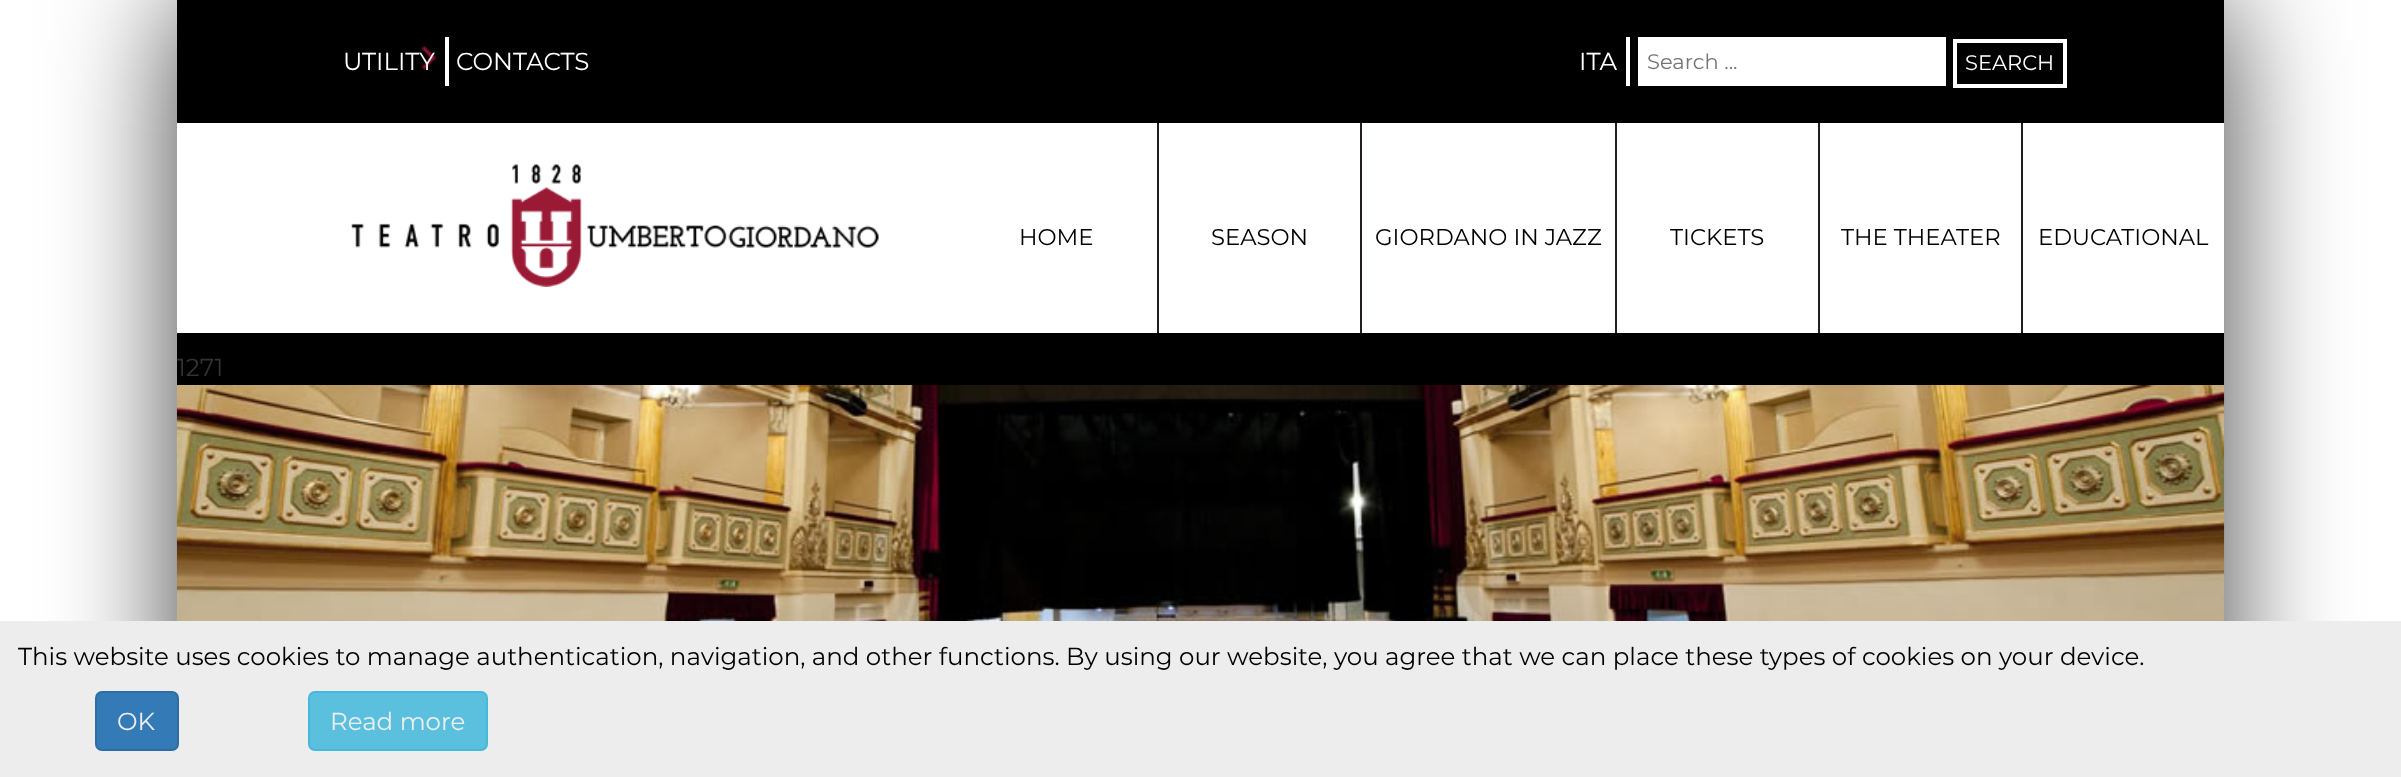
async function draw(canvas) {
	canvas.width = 2401;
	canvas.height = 777;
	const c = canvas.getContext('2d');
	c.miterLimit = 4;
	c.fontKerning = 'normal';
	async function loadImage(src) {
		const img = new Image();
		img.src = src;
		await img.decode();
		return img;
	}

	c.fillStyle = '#fff';
	c.fillRect(0, 0, 2401, 777);
	c.fillStyle = '#000000bf';
	c.filter = 'blur(61px)';
	c.beginPath();
	c.rect(177, 0, 2047, 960);
	c.fill();
	c.filter = 'none';
	c.fillStyle = '#000';
	c.fillRect(177, 0, 2047, 123);
	c.drawImage(await loadImage('img1.png'), 421, 45, 15, 25);
	c.fillStyle = '#fff';
	c.fillRect(445, 37, 4, 49);
	c.font = '24.5px Montserrat';
	c.fillText('UTILITY', 343, 70);
	c.fillText('CONTACTS', 456, 70);
	c.fillRect(1626, 37, 4, 49);
	c.fillText('ITA', 1579, 70);
	c.fillRect(1638, 37, 308, 49);
	c.font = '21px Montserrat';
	c.fillStyle = '#757575';
	c.fillText('Search ...', 1647, 69);
	c.strokeStyle = '#fff';
	c.lineWidth = 4;
	c.strokeRect(1955, 41, 110, 45);
	c.fillStyle = '#fff';
	c.fillText('SEARCH', 1965, 70);
	c.fillStyle = '#000';
	c.fillRect(177, 333, 2047, 52);
	c.font = '24.5px Montserrat';
	c.fillStyle = '#333';
	c.fillText('1271', 177, 376);
	c.drawImage(await loadImage('img2.png'), 176, 385, 2049, 236);
	c.fillStyle = '#fff';
	c.fillRect(177, 123, 980, 210);
	c.drawImage(await loadImage('img3.png'), 351, 164, 528, 123);
	c.fillStyle = '#231f20';
	c.fillRect(1157, 123, 866, 210);
	c.font = '22.75px Montserrat';
	c.fillStyle = '#000';
	c.fillText('HOME', 1019, 245);
	c.fillStyle = '#fff';
	c.fillRect(1159, 123, 201, 210);
	c.fillStyle = '#000';
	c.fillText('SEASON', 1211, 245);
	c.fillStyle = '#fff';
	c.fillRect(1362, 123, 253, 210);
	c.fillStyle = '#000';
	c.fillText('GIORDANO IN JAZZ', 1375, 245);
	c.fillStyle = '#fff';
	c.fillRect(1617, 123, 201, 210);
	c.fillStyle = '#000';
	c.fillText('TICKETS', 1670, 245);
	c.fillStyle = '#fff';
	c.fillRect(1820, 123, 201, 210);
	c.fillStyle = '#000';
	c.fillText('THE THEATER', 1841, 245);
	c.fillStyle = '#fff';
	c.fillRect(2023, 123, 201, 210);
	c.fillStyle = '#000';
	c.fillText('EDUCATIONAL', 2038, 245);
	c.fillStyle = '#ededed';
	c.fillRect(0, 621, 2401, 156);
	c.font = '24.5px Montserrat';
	c.fillStyle = '#000';
	c.fillText('This website uses cookies to manage authentication, navigation, and other functions. By using our website, you agree that we can place these types of cookies on your device.', 18, 665);
	c.fillStyle = '#337ab7';
	c.beginPath();
	c.roundRect(96, 692, 82, 58, 6);
	c.fill();
	c.strokeStyle = '#2e6da4';
	c.lineWidth = 2;
	c.stroke();
	c.fillStyle = '#eee';
	c.fillText('OK', 117, 730);
	c.fillStyle = '#5bc0de';
	c.beginPath();
	c.roundRect(309, 692, 178, 58, 6);
	c.fill();
	c.strokeStyle = '#46b8da';
	c.stroke();
	c.fillStyle = '#eee';
	c.fillText('Read more', 330, 730);
}

draw(document.querySelector('canvas'));
